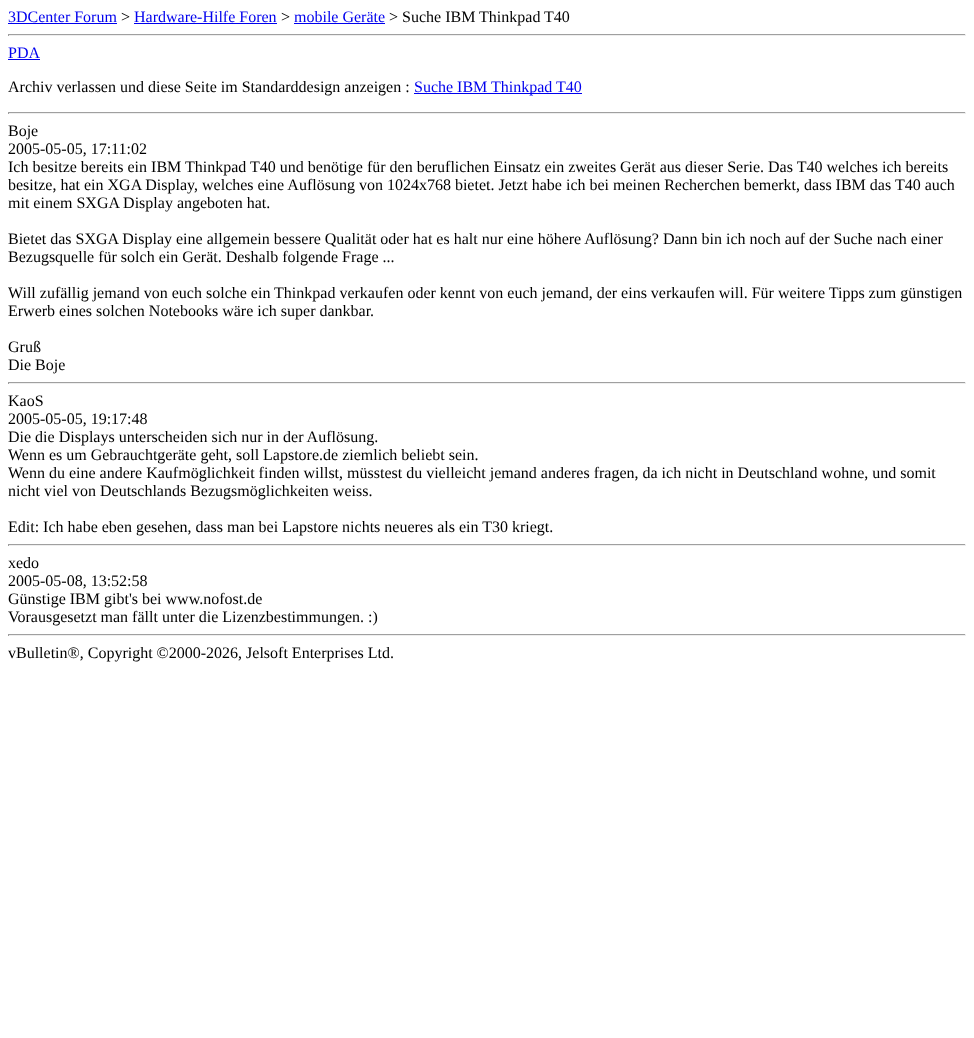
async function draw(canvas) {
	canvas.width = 974;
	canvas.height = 1038;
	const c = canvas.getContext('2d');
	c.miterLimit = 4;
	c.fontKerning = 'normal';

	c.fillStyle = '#fff';
	c.fillRect(0, 0, 974, 1038);
	c.font = '16px Liberation Serif';
	c.fillStyle = '#00e';
	c.fillText('3DCenter Forum', 8, 22);
	c.fillRect(8, 23, 109, 1);
	c.fillStyle = '#000';
	c.fillText('>', 121, 22);
	c.fillStyle = '#00e';
	c.fillText('Hardware-Hilfe Foren', 134, 22);
	c.fillRect(134, 23, 143, 1);
	c.fillStyle = '#000';
	c.fillText('>', 281, 22);
	c.fillStyle = '#00e';
	c.fillText('mobile Geräte', 294, 22);
	c.fillRect(294, 23, 91, 1);
	c.fillStyle = '#000';
	c.fillText('> Suche IBM Thinkpad T40', 389, 22);
	for (const [x, y, w, h, color] of [
		[8, 34, 958, 1, '#9f9f9f'],
		[965, 34, 1, 2, '#eee'],
		[8, 35, 958, 1, '#eee'],
		[8, 34, 1, 2, '#9f9f9f'],
	]) {
		c.fillStyle = color;
		c.fillRect(x, y, w, h);
	}
	c.fillStyle = '#00e';
	c.fillText('PDA', 8, 58);
	c.fillRect(8, 59, 32, 1);
	c.fillStyle = '#000';
	c.fillText('Archiv verlassen und diese Seite im Standarddesign anzeigen :', 8, 92);
	c.fillStyle = '#00e';
	c.fillRect(414, 93, 168, 1);
	c.fillText('Suche IBM Thinkpad T40', 414, 92);
	for (const [x, y, w, h, color] of [
		[8, 112, 958, 1, '#9f9f9f'],
		[965, 112, 1, 2, '#eee'],
		[8, 113, 958, 1, '#eee'],
		[8, 112, 1, 2, '#9f9f9f'],
	]) {
		c.fillStyle = color;
		c.fillRect(x, y, w, h);
	}
	c.fillStyle = '#000';
	for (const [text, x, y] of [
		['Boje', 8, 136],
		['2005-05-05, 17:11:02', 8, 154],
		['Ich besitze bereits ein IBM Thinkpad T40 und benötige für den beruflichen Einsatz ein zweites Gerät aus dieser Serie. Das T40 welches ich bereits', 8, 172],
		['besitze, hat ein XGA Display, welches eine Auflösung von 1024x768 bietet. Jetzt habe ich bei meinen Recherchen bemerkt, dass IBM das T40 auch', 8, 190],
		['mit einem SXGA Display angeboten hat.', 8, 208],
		['Bietet das SXGA Display eine allgemein bessere Qualität oder hat es halt nur eine höhere Auflösung? Dann bin ich noch auf der Suche nach einer', 8, 244],
		['Bezugsquelle für solch ein Gerät. Deshalb folgende Frage ...', 8, 262],
		['Will zufällig jemand von euch solche ein Thinkpad verkaufen oder kennt von euch jemand, der eins verkaufen will. Für weitere Tipps zum günstigen', 8, 298],
		['Erwerb eines solchen Notebooks wäre ich super dankbar.', 8, 316],
		['Gruß', 8, 352],
		['Die Boje', 8, 370],
	]) {
		c.fillText(text, x, y);
	}
	for (const [x, y, w, h, color] of [
		[8, 382, 958, 1, '#9f9f9f'],
		[965, 382, 1, 2, '#eee'],
		[8, 383, 958, 1, '#eee'],
		[8, 382, 1, 2, '#9f9f9f'],
	]) {
		c.fillStyle = color;
		c.fillRect(x, y, w, h);
	}
	c.fillStyle = '#000';
	for (const [text, x, y] of [
		['KaoS', 8, 406],
		['2005-05-05, 19:17:48', 8, 424],
		['Die die Displays unterscheiden sich nur in der Auflösung.', 8, 442],
		['Wenn es um Gebrauchtgeräte geht, soll Lapstore.de ziemlich beliebt sein.', 8, 460],
		['Wenn du eine andere Kaufmöglichkeit finden willst, müsstest du vielleicht jemand anderes fragen, da ich nicht in Deutschland wohne, und somit', 8, 478],
		['nicht viel von Deutschlands Bezugsmöglichkeiten weiss.', 8, 496],
		['Edit: Ich habe eben gesehen, dass man bei Lapstore nichts neueres als ein T30 kriegt.', 8, 532],
	]) {
		c.fillText(text, x, y);
	}
	for (const [x, y, w, h, color] of [
		[8, 544, 958, 1, '#9f9f9f'],
		[965, 544, 1, 2, '#eee'],
		[8, 545, 958, 1, '#eee'],
		[8, 544, 1, 2, '#9f9f9f'],
	]) {
		c.fillStyle = color;
		c.fillRect(x, y, w, h);
	}
	c.fillStyle = '#000';
	for (const [text, x, y] of [
		['xedo', 8, 568],
		['2005-05-08, 13:52:58', 8, 586],
		['Günstige IBM gibt\'s bei www.nofost.de', 8, 604],
		['Vorausgesetzt man fällt unter die Lizenzbestimmungen. :)', 8, 622],
	]) {
		c.fillText(text, x, y);
	}
	for (const [x, y, w, h, color] of [
		[8, 634, 958, 1, '#9f9f9f'],
		[965, 634, 1, 2, '#eee'],
		[8, 635, 958, 1, '#eee'],
		[8, 634, 1, 2, '#9f9f9f'],
	]) {
		c.fillStyle = color;
		c.fillRect(x, y, w, h);
	}
	c.fillStyle = '#000';
	c.fillText('vBulletin®, Copyright ©2000-2026, Jelsoft Enterprises Ltd.', 8, 658);
}

draw(document.querySelector('canvas'));
